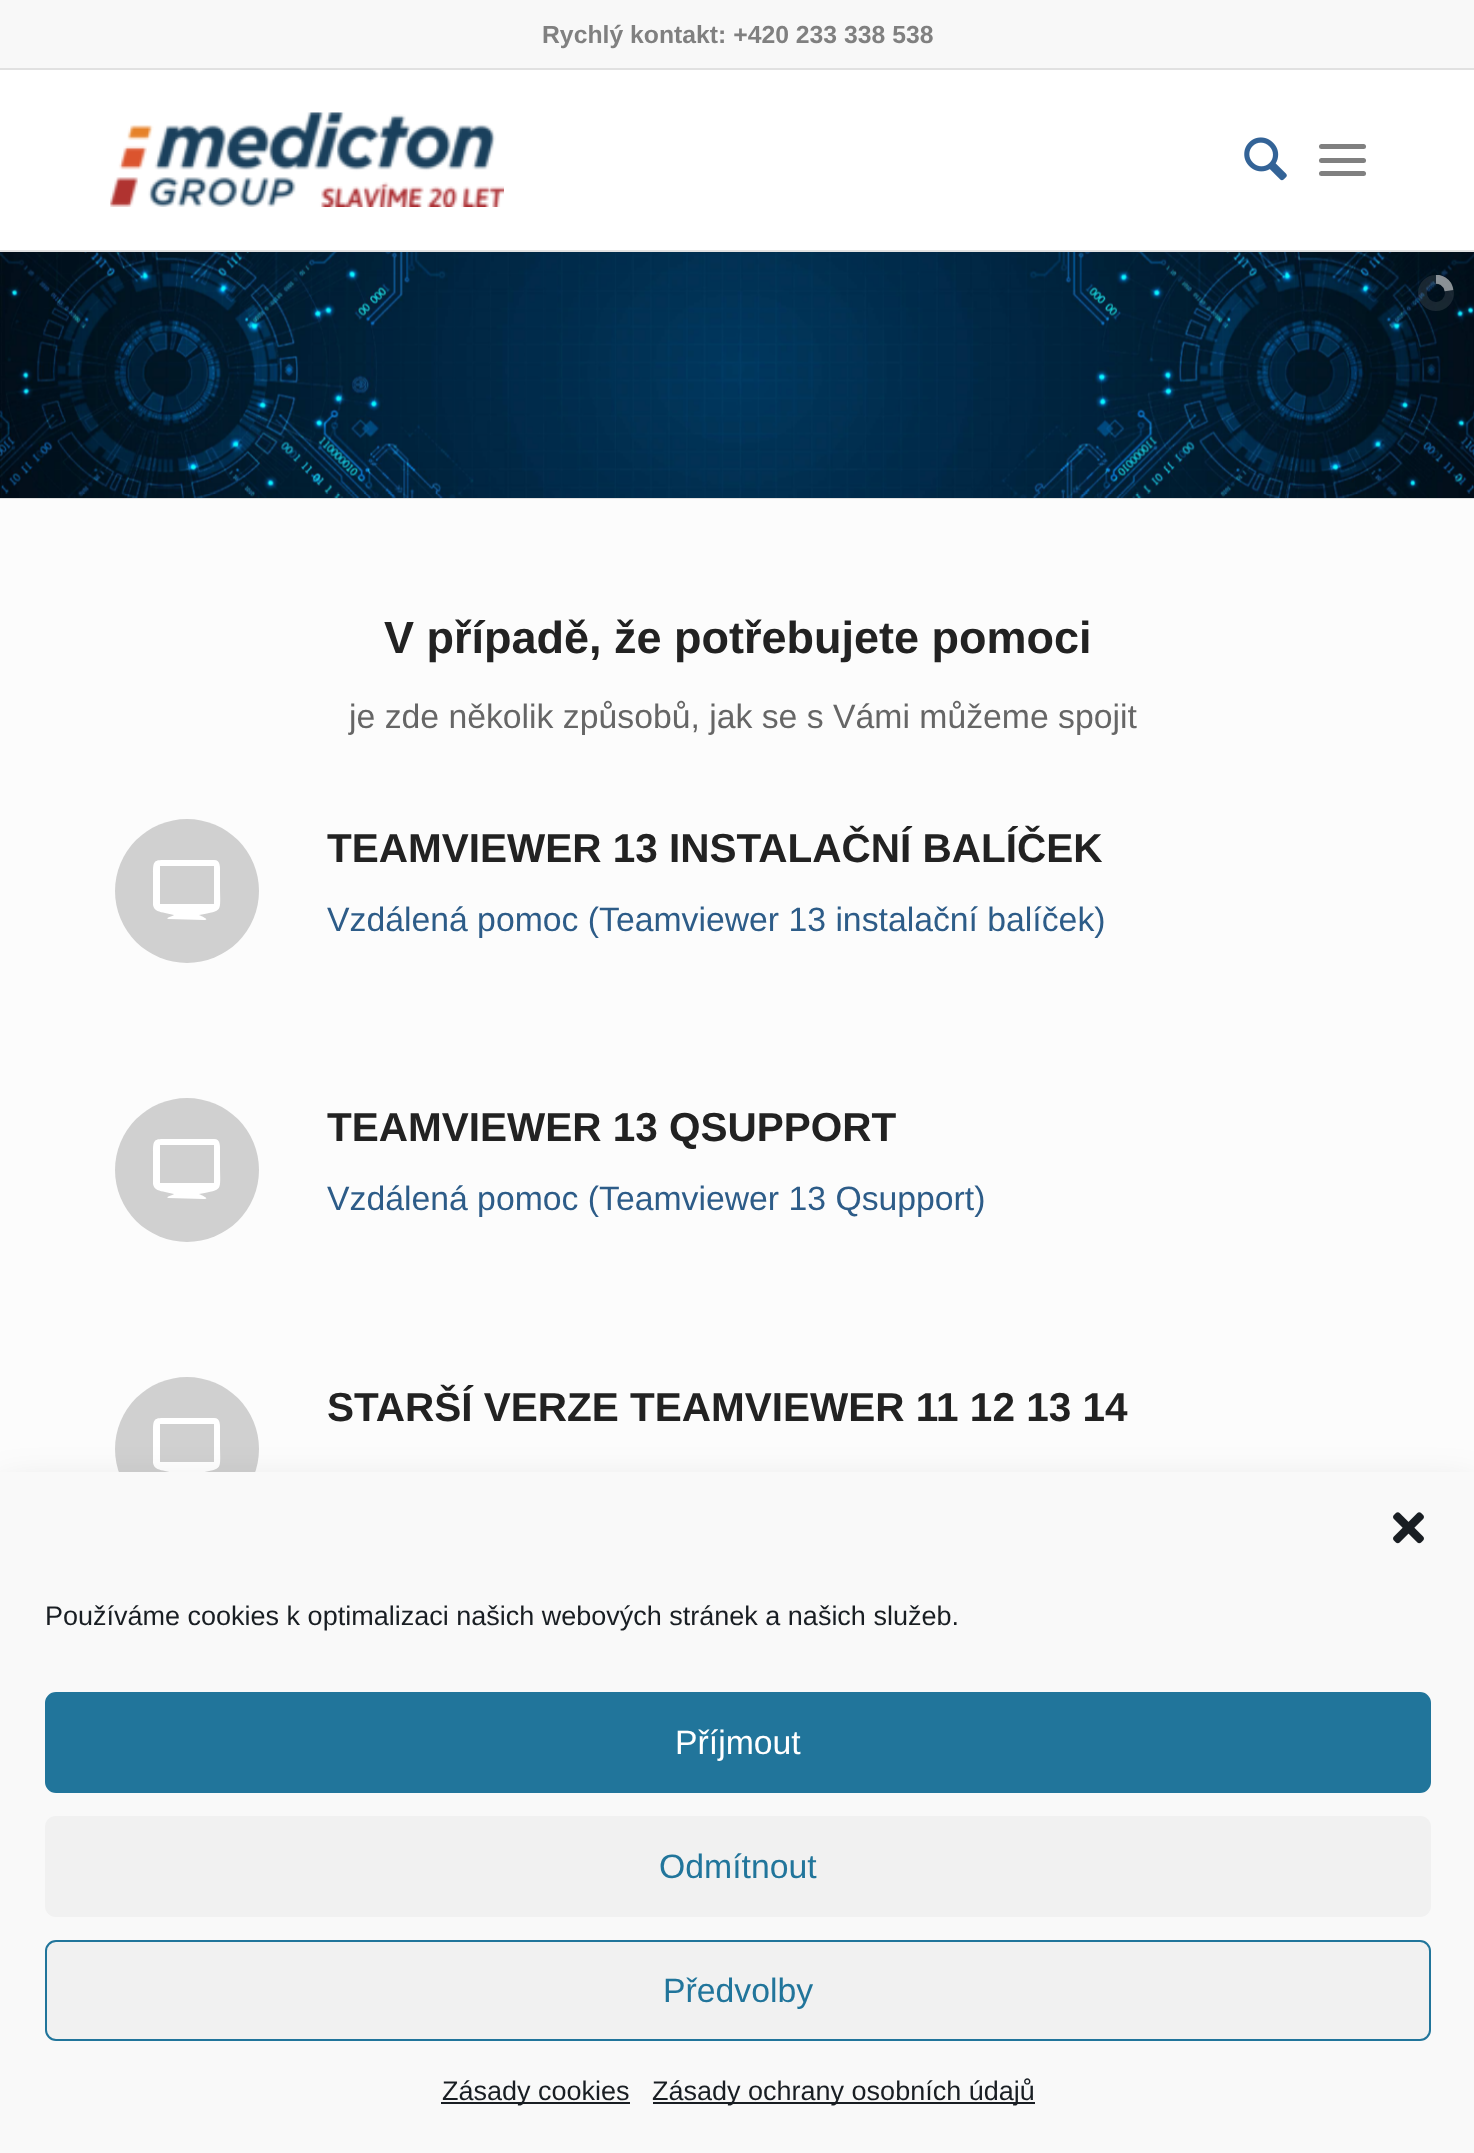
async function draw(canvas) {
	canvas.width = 1474;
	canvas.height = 2153;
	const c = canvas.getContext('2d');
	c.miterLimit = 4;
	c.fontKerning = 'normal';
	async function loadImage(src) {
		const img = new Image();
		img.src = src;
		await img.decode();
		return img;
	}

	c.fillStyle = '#fcfcfc';
	c.fillRect(0, 0, 1474, 2153);
	c.fillStyle = '#f8f8f8';
	c.fillRect(0, 0, 1474, 68);
	c.fillStyle = '#e1e1e1';
	c.fillRect(0, 68, 1474, 2);
	c.font = 'bold 24.75px Liberation Sans';
	c.fillStyle = '#808080';
	c.fillText('Rychlý kontakt: +420 233 338 538', 542, 43);
	c.fillStyle = '#fff';
	c.fillRect(0, 70, 1474, 180);
	c.fillStyle = '#e1e1e1';
	c.fillRect(0, 250, 1474, 2);
	c.drawImage(await loadImage('img1.png'), 110, 112, 394, 95);
	c.drawImage(await loadImage('img2.png'), 1244, 137, 43, 44);
	c.fillStyle = '#808080';
	c.beginPath();
	c.roundRect(1319, 158, 47, 5, 2.5);
	c.fill();
	c.beginPath();
	c.roundRect(1319, 144, 47, 5, 2.5);
	c.fill();
	c.beginPath();
	c.roundRect(1319, 171, 47, 5, 2.5);
	c.fill();
	c.drawImage(await loadImage('img3.png'), 0, 252, 1474, 246);
	c.beginPath();
	c.arc(1436, 293, 13.5, 0, 2 * Math.PI);
	c.strokeStyle = '#e1e1e11c';
	c.lineWidth = 9;
	c.stroke();
	c.save();
	c.beginPath();
	c.rect(1436, 275, 18, 36);
	c.clip();
	c.beginPath();
	c.moveTo(1450.5, 272);
	c.lineTo(1453.5, 290);
	c.lineTo(1417.5, 295);
	c.lineTo(1415, 277.5);
	c.closePath();
	c.clip();
	c.beginPath();
	c.moveTo(1449, 290.5);
	c.bezierCurveTo(1451.5, 308, 1425, 312, 1422, 294.5);
	c.bezierCurveTo(1419.5, 277, 1446, 273, 1449, 290.5);
	c.closePath();
	c.strokeStyle = '#e1e1e191';
	c.stroke();
	c.restore();
	c.fillStyle = '#e1e1e1';
	c.fillRect(0, 498, 1474, 1);
	c.font = 'bold 45px Liberation Sans';
	c.fillStyle = '#222';
	c.fillText('V případě, že potřebujete pomoci', 384, 653);
	c.font = '33.75px Liberation Sans';
	c.fillStyle = '#666';
	c.fillText('je zde několik způsobů, jak se s Vámi můžeme spojit', 349, 728);
	c.fillStyle = '#d0d0d0';
	c.beginPath();
	c.arc(187, 891, 72, 0, 2 * Math.PI);
	c.fill();
	c.fillStyle = '#fff';
	c.beginPath();
	c.moveTo(214, 860);
	c.bezierCurveTo(221, 860, 220, 868, 220, 873);
	c.lineTo(220, 885);
	c.bezierCurveTo(220, 913, 224, 910, 199, 915);
	c.bezierCurveTo(201, 916, 211, 920, 204, 920);
	c.lineTo(168, 919);
	c.bezierCurveTo(165, 918, 173, 916, 174, 915);
	c.lineTo(165, 913);
	c.bezierCurveTo(160, 912, 154, 911, 153, 905);
	c.lineTo(153, 873);
	c.bezierCurveTo(153, 859, 155, 860, 169, 860);
	c.closePath();
	c.moveTo(214, 904);
	c.lineTo(214, 866);
	c.lineTo(160, 866);
	c.lineTo(160, 904);
	c.closePath();
	c.fill();
	c.font = 'bold 40.5px Liberation Sans';
	c.fillStyle = '#222';
	c.fillText('TEAMVIEWER 13 INSTALAČNÍ BALÍČEK', 327, 862);
	c.font = '33.75px Liberation Sans';
	c.fillStyle = '#2d5c88';
	c.fillText('Vzdálená pomoc (Teamviewer 13 instalační balíček)', 327, 931);
	c.fillStyle = '#d0d0d0';
	c.beginPath();
	c.arc(187, 1170, 72, 0, 2 * Math.PI);
	c.fill();
	c.fillStyle = '#fff';
	c.beginPath();
	c.moveTo(214, 1139);
	c.bezierCurveTo(221, 1139, 220, 1147, 220, 1152);
	c.lineTo(220, 1164);
	c.bezierCurveTo(220, 1192, 224, 1189, 199, 1194);
	c.bezierCurveTo(201, 1195, 211, 1199, 204, 1199);
	c.lineTo(168, 1198);
	c.bezierCurveTo(165, 1197, 173, 1195, 174, 1194);
	c.lineTo(165, 1192);
	c.bezierCurveTo(160, 1191, 154, 1190, 153, 1184);
	c.lineTo(153, 1152);
	c.bezierCurveTo(153, 1138, 155, 1139, 169, 1139);
	c.closePath();
	c.moveTo(214, 1183);
	c.lineTo(214, 1145);
	c.lineTo(160, 1145);
	c.lineTo(160, 1183);
	c.closePath();
	c.fill();
	c.font = 'bold 40.5px Liberation Sans';
	c.fillStyle = '#222';
	c.fillText('TEAMVIEWER 13 QSUPPORT', 327, 1141);
	c.font = '33.75px Liberation Sans';
	c.fillStyle = '#2d5c88';
	c.fillText('Vzdálená pomoc (Teamviewer 13 Qsupport)', 327, 1210);
	c.fillStyle = '#d0d0d0';
	c.beginPath();
	c.arc(187, 1449, 72, 0, 2 * Math.PI);
	c.fill();
	c.fillStyle = '#fff';
	c.beginPath();
	c.moveTo(214, 1418);
	c.bezierCurveTo(221, 1418, 220, 1426, 220, 1431);
	c.lineTo(220, 1443);
	c.bezierCurveTo(220, 1471, 224, 1468, 199, 1473);
	c.bezierCurveTo(201, 1474, 211, 1478, 204, 1478);
	c.lineTo(168, 1477);
	c.bezierCurveTo(165, 1476, 173, 1474, 174, 1473);
	c.lineTo(165, 1471);
	c.bezierCurveTo(160, 1470, 154, 1469, 153, 1463);
	c.lineTo(153, 1431);
	c.bezierCurveTo(153, 1417, 155, 1418, 169, 1418);
	c.closePath();
	c.moveTo(214, 1462);
	c.lineTo(214, 1424);
	c.lineTo(160, 1424);
	c.lineTo(160, 1462);
	c.closePath();
	c.fill();
	c.font = 'bold 40.5px Liberation Sans';
	c.fillStyle = '#222';
	c.fillText('STARŠÍ VERZE TEAMVIEWER 11 12 13 14', 327, 1421);
	c.fillStyle = '#00000030';
	c.filter = 'blur(22.5px)';
	c.beginPath();
	c.rect(0, 1494, 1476, 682);
	c.fill();
	c.filter = 'none';
	c.fillStyle = '#f9f9f9';
	c.fillRect(0, 1472, 1474, 681);
	c.drawImage(await loadImage('img4.png'), 1393, 1512, 31, 32);
	c.font = '27px Liberation Sans';
	c.fillStyle = '#191e23';
	c.fillText('Používáme cookies k optimalizaci našich webových stránek a našich služeb.', 45, 1625);
	c.fillStyle = '#21759b';
	c.beginPath();
	c.roundRect(46, 1693, 1384, 99, 10);
	c.fill();
	c.strokeStyle = '#21759b';
	c.lineWidth = 2;
	c.stroke();
	c.font = '33.75px Liberation Sans';
	c.fillStyle = '#fff';
	c.fillText('Příjmout', 675, 1754);
	c.fillStyle = '#f1f1f1';
	c.beginPath();
	c.roundRect(45, 1816, 1386, 101, 11);
	c.fill();
	c.fillStyle = '#21759b';
	c.fillText('Odmítnout', 659, 1878);
	c.fillStyle = '#f1f1f1';
	c.beginPath();
	c.roundRect(46, 1941, 1384, 99, 10);
	c.fill();
	c.stroke();
	c.fillStyle = '#21759b';
	c.fillText('Předvolby', 663, 2002);
	c.fillStyle = '#191e23';
	c.fillRect(441, 2102, 189, 2);
	c.font = '27px Liberation Sans';
	c.fillText('Zásady cookies', 442, 2100);
	c.fillRect(653, 2102, 382, 2);
	c.fillText('Zásady ochrany osobních údajů', 652, 2100);
}

draw(document.querySelector('canvas'));
